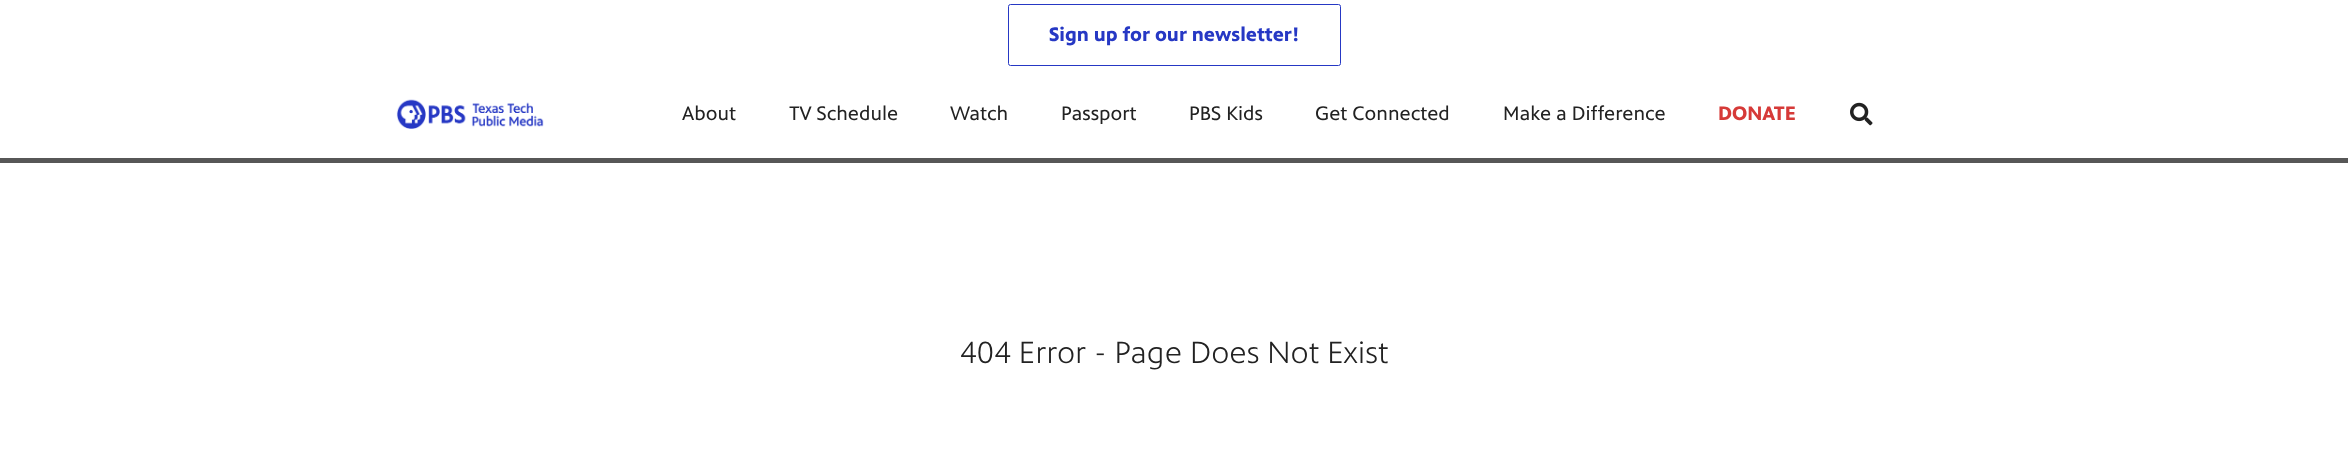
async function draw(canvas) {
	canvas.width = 2348;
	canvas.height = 474;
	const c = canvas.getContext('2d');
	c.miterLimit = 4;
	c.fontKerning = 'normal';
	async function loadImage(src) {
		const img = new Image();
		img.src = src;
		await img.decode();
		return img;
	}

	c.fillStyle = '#fff';
	c.fillRect(0, 0, 2348, 474);
	c.beginPath();
	c.roundRect(1008.5, 4.5, 332, 61, 2);
	c.strokeStyle = '#2638c4';
	c.stroke();
	c.font = 'bold 20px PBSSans';
	c.fillStyle = '#2638c4';
	c.fillText('Sign up for our newsletter!', 1049, 41);
	c.fillStyle = '#575757';
	c.fillRect(0, 158, 2348, 5);
	c.drawImage(await loadImage('img1.png'), 396, 99, 148, 30);
	c.font = '20px PBSSans';
	c.fillStyle = '#222';
	for (const [text, x, y] of [
		['About', 682, 120],
		['TV Schedule', 789, 120],
		['Watch', 950, 120],
		['Passport', 1061, 120],
		['PBS Kids', 1189, 120],
		['Get Connected', 1315, 120],
		['Make a Difference', 1503, 120],
	]) {
		c.fillText(text, x, y);
	}
	c.font = 'bold 20px PBSSans';
	c.fillStyle = '#d63a38';
	c.fillText('DONATE', 1718, 120);
	c.drawImage(await loadImage('img2.png'), 1850, 102, 23, 24);
	c.font = '300 31.25px PBS Sans';
	c.fillStyle = '#222';
	c.fillText('404 Error - Page Does Not Exist', 960, 363);
}

draw(document.querySelector('canvas'));
